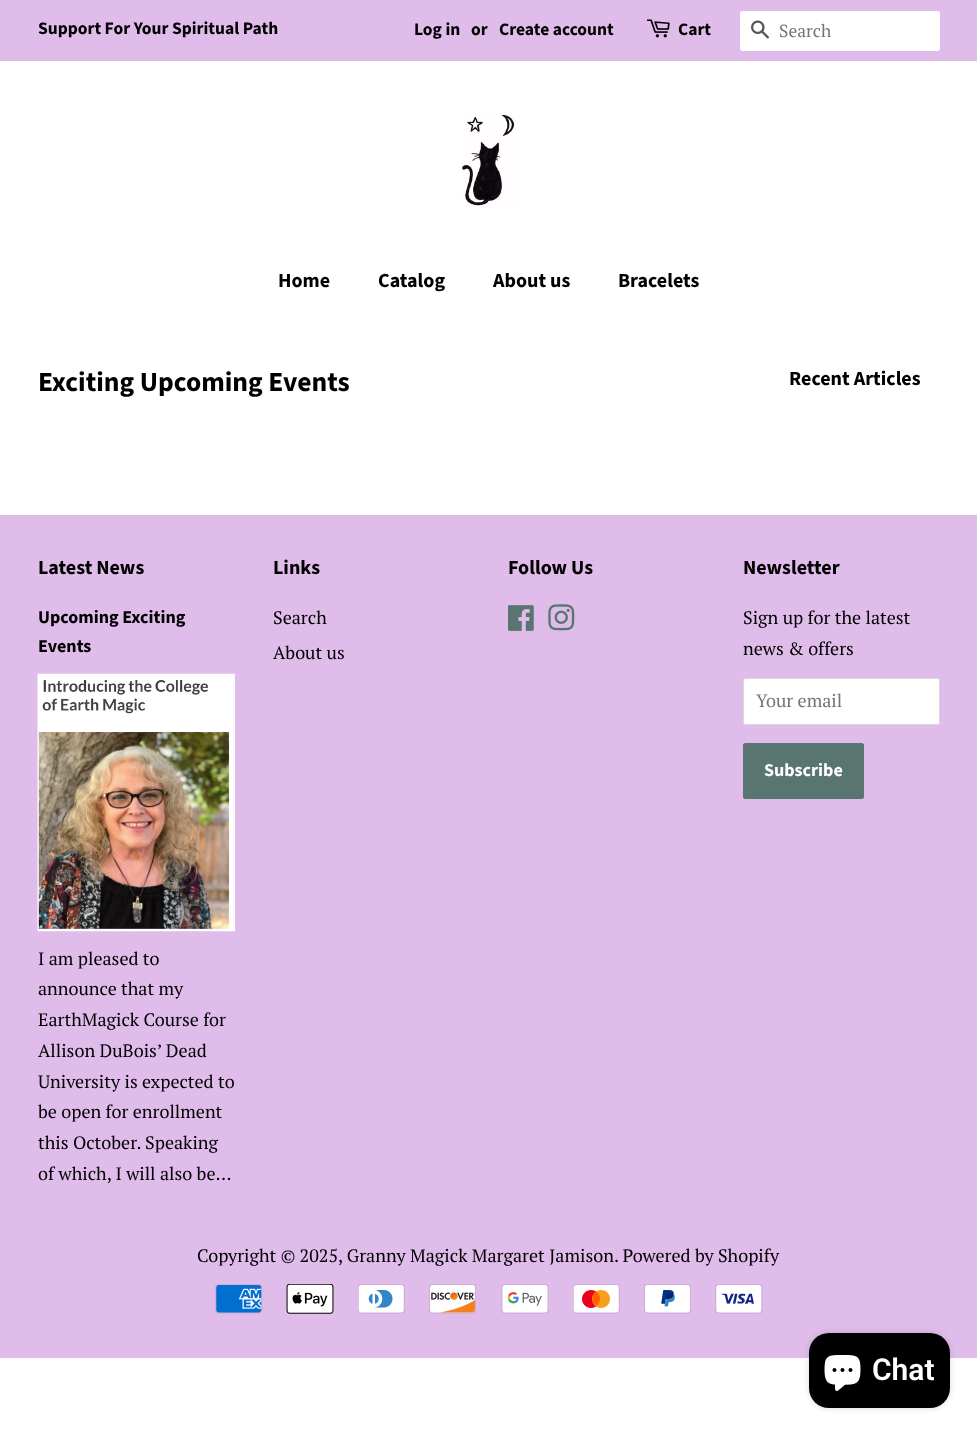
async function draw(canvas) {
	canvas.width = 977;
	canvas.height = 1433;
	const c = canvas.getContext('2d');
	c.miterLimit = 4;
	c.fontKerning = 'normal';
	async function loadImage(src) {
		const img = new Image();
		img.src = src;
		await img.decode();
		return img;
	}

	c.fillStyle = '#fff';
	c.fillRect(0, 0, 977, 1433);
	c.fillStyle = '#e0bceb';
	c.fillRect(0, 0, 977, 61);
	c.font = 'bold 17.5px Source Sans Pro';
	c.fillStyle = '#000';
	for (const [text, x, y] of [
		['Support For Your Spiritual Path', 38, 34],
		['Log in', 414, 35],
		['or', 471, 35],
		['Create account', 499, 35],
	]) {
		c.fillText(text, x, y);
	}
	c.drawImage(await loadImage('img1.png'), 646, 19, 24, 19);
	c.fillText('Cart', 678, 35);
	c.fillStyle = '#fff';
	c.beginPath();
	c.roundRect(740, 11, 200, 40, 2.5);
	c.fill();
	c.drawImage(await loadImage('img2.png'), 751, 20, 18, 19);
	c.font = '17.5px PT Serif';
	c.fillStyle = '#757575';
	c.fillText('Search', 779, 37);
	c.drawImage(await loadImage('img3.png'), 462, 114, 54, 93);
	c.font = 'bold 20px Source Sans Pro';
	c.fillStyle = '#000';
	for (const [text, x, y] of [
		['Home', 278, 287],
		['Catalog', 378, 287],
		['About us', 493, 287],
		['Bracelets', 618, 287],
	]) {
		c.fillText(text, x, y);
	}
	c.font = 'bold 27.5px Source Sans Pro';
	c.fillText('Exciting Upcoming Events', 38, 391);
	c.font = 'bold 20px Source Sans Pro';
	c.fillText('Recent Articles', 789, 385);
	c.fillStyle = '#e0bceb';
	c.fillRect(0, 515, 977, 843);
	c.fillStyle = '#000';
	c.fillText('Latest News', 38, 574);
	c.font = 'bold 18.05px Source Sans Pro';
	c.fillText('Upcoming Exciting', 38, 623);
	c.fillText('Events', 38, 652);
	c.drawImage(await loadImage('img4.png'), 37, 673, 198, 259);
	c.font = '18.05px PT Serif';
	for (const [text, x, y] of [
		['I am pleased to', 38, 965],
		['announce that my', 38, 995],
		['EarthMagick Course for', 38, 1026],
		['Allison DuBois’ Dead', 38, 1057],
		['University is expected to', 38, 1088],
		['be open for enrollment', 38, 1118],
		['this October. Speaking', 38, 1149],
		['of which, I will also be...', 38, 1180],
	]) {
		c.fillText(text, x, y);
	}
	c.font = 'bold 20px Source Sans Pro';
	c.fillText('Links', 273, 574);
	c.font = '18.05px PT Serif';
	c.fillText('Search', 273, 624);
	c.fillText('About us', 273, 659);
	c.font = 'bold 20px Source Sans Pro';
	c.fillText('Follow Us', 508, 574);
	c.drawImage(await loadImage('img5.png'), 508, 605, 26, 26);
	c.drawImage(await loadImage('img6.png'), 548, 604, 27, 27);
	c.fillText('Newsletter', 743, 574);
	c.font = '18.05px PT Serif';
	c.fillText('Sign up for the latest', 743, 624);
	c.fillText('news & offers', 743, 655);
	c.fillStyle = '#fff';
	c.beginPath();
	c.roundRect(743, 678, 197, 47, 2.5);
	c.fill();
	c.beginPath();
	c.roundRect(743.5, 678.5, 196, 46, 2);
	c.strokeStyle = '#00000026';
	c.stroke();
	c.fillStyle = '#757575';
	c.fillText('Your email', 756, 707);
	c.fillStyle = '#59756f';
	c.beginPath();
	c.roundRect(743, 743, 121, 56, 2.5);
	c.fill();
	c.font = 'bold 18.05px Source Sans Pro';
	c.fillStyle = '#fff';
	c.fillText('Subscribe', 764, 776);
	c.font = '18.05px PT Serif';
	c.fillStyle = '#000';
	c.fillText('Copyright © 2025, Granny Magick Margaret Jamison. Powered by Shopify', 197, 1262);
	c.drawImage(await loadImage('img7.png'), 215, 1284, 48, 30);
	c.drawImage(await loadImage('img8.png'), 286, 1284, 48, 30);
	c.drawImage(await loadImage('img9.png'), 358, 1284, 47, 30);
	c.drawImage(await loadImage('img10.png'), 429, 1284, 47, 30);
	c.drawImage(await loadImage('img11.png'), 501, 1284, 48, 30);
	c.drawImage(await loadImage('img12.png'), 573, 1284, 47, 30);
	c.drawImage(await loadImage('img13.png'), 644, 1284, 47, 30);
	c.drawImage(await loadImage('img14.png'), 715, 1284, 48, 30);
	c.fillStyle = '#00000026';
	c.filter = 'blur(3px)';
	c.beginPath();
	c.roundRect(809, 1333, 141, 75, 20);
	c.fill();
	c.filter = 'none';
	c.fillStyle = '#000';
	c.beginPath();
	c.roundRect(809, 1333, 141, 75, 20);
	c.fill();
	c.drawImage(await loadImage('img15.png'), 824, 1355, 37, 36);
	c.font = '600 30px Roboto';
	c.fillStyle = '#fff';
	c.fillText('Chat', 872, 1380);
}

draw(document.querySelector('canvas'));
